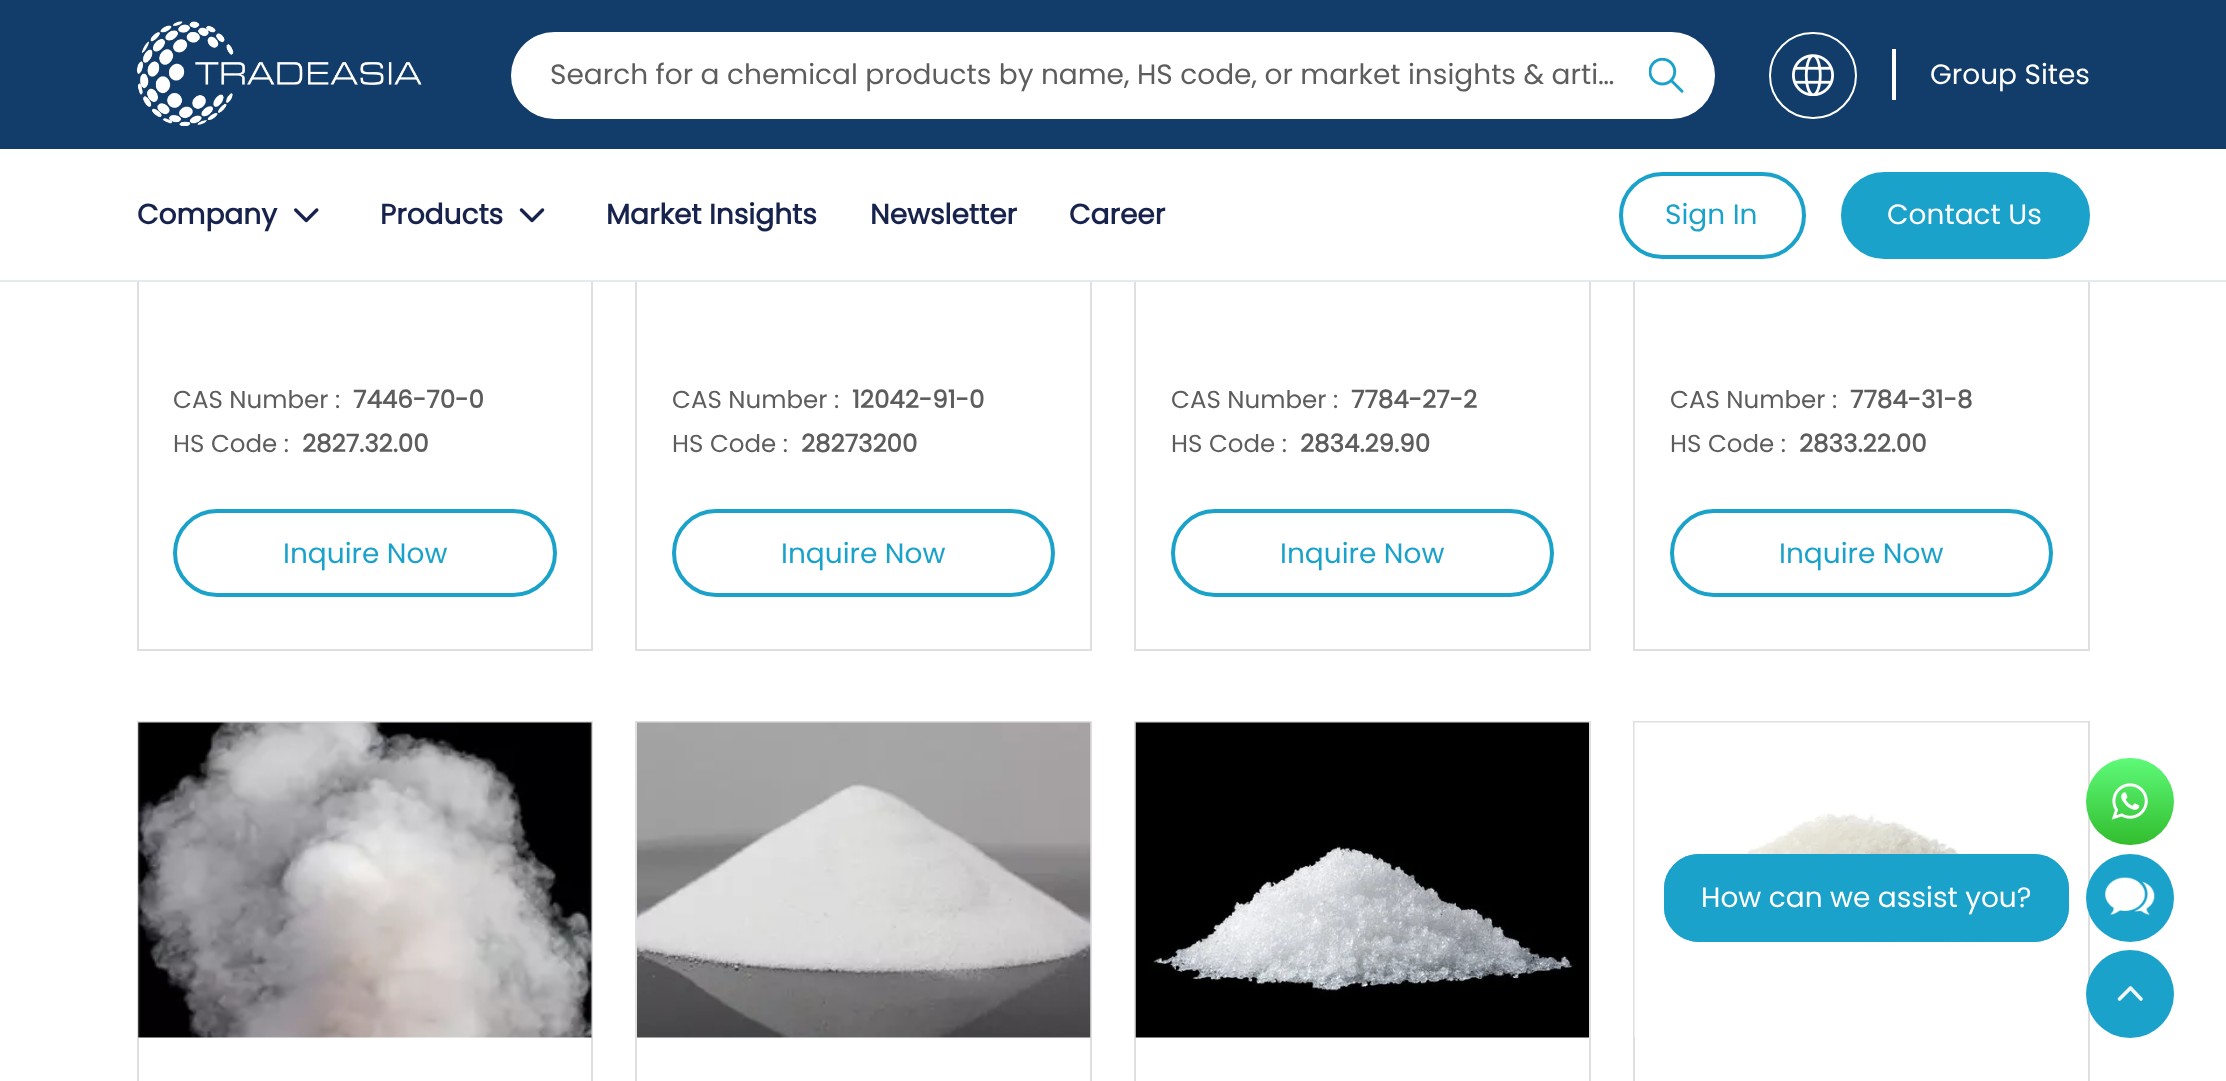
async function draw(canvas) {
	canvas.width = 2226;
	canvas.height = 1081;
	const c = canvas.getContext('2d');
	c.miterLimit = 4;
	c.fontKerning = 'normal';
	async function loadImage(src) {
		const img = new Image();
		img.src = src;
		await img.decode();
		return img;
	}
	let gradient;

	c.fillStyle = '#fff';
	c.fillRect(0, 0, 2226, 1081);
	c.strokeStyle = '#dfdfdf';
	c.lineWidth = 2;
	c.strokeRect(138, -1, 454, 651);
	c.strokeRect(636, -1, 455, 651);
	c.strokeRect(1135, -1, 455, 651);
	c.strokeRect(1634, -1, 455, 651);
	c.fillStyle = '#123c69';
	c.fillRect(0, 0, 2226, 149);
	c.drawImage(await loadImage('img1.png'), 136, 21, 286, 105);
	c.fillStyle = '#fff';
	c.beginPath();
	c.roundRect(511, 32, 1204, 87, 43.5);
	c.fill();
	c.font = '28px Poppins';
	c.fillStyle = '#5d5d5d';
	c.fillText('Search for a chemical products by name, HS code, or market insights & arti…', 550, 84);
	c.drawImage(await loadImage('img2.png'), 1649, 58, 35, 35);
	c.beginPath();
	c.roundRect(1770, 33, 86, 85, 42.5);
	c.strokeStyle = '#fff';
	c.stroke();
	c.drawImage(await loadImage('img3.png'), 1792, 54, 42, 42);
	c.fillStyle = '#fff';
	c.fillRect(1892, 49, 4, 51);
	c.fillText('Group Sites', 1930, 84);
	c.fillRect(137, 149, 1953, 131);
	c.fillStyle = '#e6e9ed';
	c.fillRect(0, 280, 2226, 2);
	c.font = 'bold 28px Poppins';
	c.fillStyle = '#17234d';
	c.fillText('Company', 137, 224);
	c.drawImage(await loadImage('img4.png'), 294, 208, 25, 15);
	c.fillText('Products', 380, 224);
	c.drawImage(await loadImage('img5.png'), 519, 208, 26, 15);
	for (const [text, x, y] of [
		['Market Insights', 606, 224],
		['Newsletter', 870, 224],
		['Career', 1069, 224],
	]) {
		c.fillText(text, x, y);
	}
	c.beginPath();
	c.roundRect(1621, 174, 183, 83, 41.5);
	c.strokeStyle = '#1ba2ca';
	c.lineWidth = 4;
	c.stroke();
	c.font = '28px Poppins';
	c.fillStyle = '#1ba2ca';
	c.fillText('Sign In', 1665, 224);
	c.beginPath();
	c.roundRect(1843, 174, 245, 83, 41.5);
	c.fill();
	c.stroke();
	c.fillStyle = '#fff';
	c.fillText('Contact Us', 1887, 224);
	c.font = '24.5px Poppins';
	c.fillStyle = '#5d5d5d';
	c.fillText('CAS Number :', 173, 408);
	c.font = 'bold 24.5px Poppins';
	c.fillText('7446-70-0', 353, 408);
	c.font = '24.5px Poppins';
	c.fillText('HS Code :', 173, 452);
	c.font = 'bold 24.5px Poppins';
	c.fillText('2827.32.00', 302, 452);
	c.beginPath();
	c.roundRect(175, 511, 380, 84, 42);
	c.stroke();
	c.font = '28px Poppins';
	c.fillStyle = '#1ba2ca';
	c.fillText('Inquire Now', 283, 563);
	c.font = '24.5px Poppins';
	c.fillStyle = '#5d5d5d';
	c.fillText('CAS Number :', 672, 408);
	c.font = 'bold 24.5px Poppins';
	c.fillText('12042-91-0', 852, 408);
	c.font = '24.5px Poppins';
	c.fillText('HS Code :', 672, 452);
	c.font = 'bold 24.5px Poppins';
	c.fillText('28273200', 801, 452);
	c.beginPath();
	c.roundRect(674, 511, 379, 84, 42);
	c.stroke();
	c.font = '28px Poppins';
	c.fillStyle = '#1ba2ca';
	c.fillText('Inquire Now', 781, 563);
	c.font = '24.5px Poppins';
	c.fillStyle = '#5d5d5d';
	c.fillText('CAS Number :', 1171, 408);
	c.font = 'bold 24.5px Poppins';
	c.fillText('7784-27-2', 1351, 408);
	c.font = '24.5px Poppins';
	c.fillText('HS Code :', 1171, 452);
	c.font = 'bold 24.5px Poppins';
	c.fillText('2834.29.90', 1300, 452);
	c.beginPath();
	c.roundRect(1173, 511, 379, 84, 42);
	c.stroke();
	c.font = '28px Poppins';
	c.fillStyle = '#1ba2ca';
	c.fillText('Inquire Now', 1280, 563);
	c.font = '24.5px Poppins';
	c.fillStyle = '#5d5d5d';
	c.fillText('CAS Number :', 1670, 408);
	c.font = 'bold 24.5px Poppins';
	c.fillText('7784-31-8', 1850, 408);
	c.font = '24.5px Poppins';
	c.fillText('HS Code :', 1670, 452);
	c.font = 'bold 24.5px Poppins';
	c.fillText('2833.22.00', 1799, 452);
	c.beginPath();
	c.roundRect(1672, 511, 379, 84, 42);
	c.stroke();
	c.font = '28px Poppins';
	c.fillStyle = '#1ba2ca';
	c.fillText('Inquire Now', 1779, 563);
	c.strokeStyle = '#dfdfdf';
	c.lineWidth = 2;
	c.strokeRect(138, 722, 454, 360);
	c.drawImage(await loadImage('img6.png'), 138, 722, 454, 316);
	c.strokeRect(636, 722, 455, 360);
	c.drawImage(await loadImage('img7.png'), 637, 722, 454, 316);
	c.strokeRect(1135, 722, 455, 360);
	c.drawImage(await loadImage('img8.png'), 1135, 722, 454, 316);
	c.strokeRect(1634, 722, 455, 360);
	c.drawImage(await loadImage('img9.png'), 1634, 722, 454, 316);
	c.beginPath();
	c.roundRect(1665, 855, 403, 86, 34);
	c.strokeStyle = '#1ba2ca';
	c.stroke();
	gradient = c.createLinearGradient(2130, 758, 2130, 845);
	gradient.addColorStop(0, '#5efa79');
	gradient.addColorStop(1, '#32bd2e');
	c.fillStyle = gradient;
	c.beginPath();
	c.roundRect(2086, 758, 88, 87, 43.5);
	c.fill();
	c.drawImage(await loadImage('img10.png'), 2111, 783, 37, 37);
	c.fillStyle = '#1ba2ca';
	c.beginPath();
	c.roundRect(1665, 855, 403, 86, 34);
	c.fill();
	c.stroke();
	c.fillStyle = '#fff';
	c.fillText('How can we assist you?', 1701, 907);
	c.fillStyle = '#1ba2ca';
	c.beginPath();
	c.arc(2130, 898, 44, 0, 2 * Math.PI);
	c.fill();
	c.drawImage(await loadImage('img11.png'), 2105, 877, 50, 39);
	c.beginPath();
	c.arc(2130, 994, 44, 0, 2 * Math.PI);
	c.fill();
	c.beginPath();
	c.moveTo(2141, 999);
	c.lineTo(2130.5, 988);
	c.lineTo(2119.5, 999);
	c.strokeStyle = '#f3f7fa';
	c.lineWidth = 3.6;
	c.lineCap = 'round';
	c.lineJoin = 'round';
	c.stroke();
}

draw(document.querySelector('canvas'));
